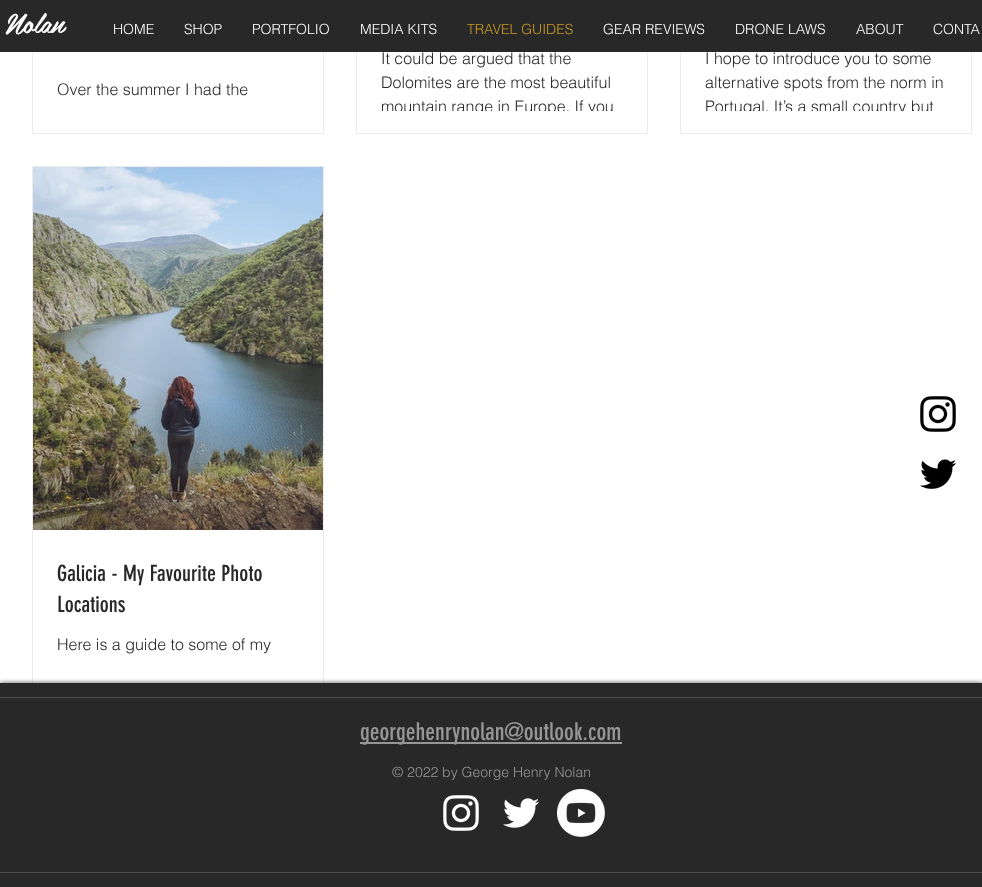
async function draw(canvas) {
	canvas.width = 982;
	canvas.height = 887;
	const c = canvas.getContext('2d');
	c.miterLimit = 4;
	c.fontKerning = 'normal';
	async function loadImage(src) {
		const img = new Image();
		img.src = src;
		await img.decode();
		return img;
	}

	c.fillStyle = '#fff';
	c.fillRect(0, 0, 982, 887);
	c.strokeStyle = '#ececec';
	c.strokeRect(32.5, -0.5, 291, 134);
	c.strokeRect(356.5, -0.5, 291, 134);
	c.strokeRect(680.5, -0.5, 291, 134);
	c.fillStyle = '#282828';
	c.fillRect(0, 0, 982, 52);
	c.font = '27px "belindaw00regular"';
	c.fillStyle = '#fff';
	c.fillText('Nolan', 5, 33);
	c.font = '300 14px helvetica';
	for (const [text, x, y] of [
		['HOME', 113, 34],
		['SHOP', 184, 34],
		['PORTFOLIO', 252, 34],
		['MEDIA KITS', 360, 34],
	]) {
		c.fillText(text, x, y);
	}
	c.fillStyle = '#c99a22';
	c.fillText('TRAVEL GUIDES', 467, 34);
	c.fillStyle = '#fff';
	for (const [text, x, y] of [
		['GEAR REVIEWS', 603, 34],
		['DRONE LAWS', 735, 34],
		['ABOUT', 856, 34],
		['CONTA', 933, 34],
	]) {
		c.fillText(text, x, y);
	}
	c.font = '300 16px helvetica';
	c.fillStyle = '#282828';
	for (const [text, x, y] of [
		['Over the summer I had the', 57, 95],
		['It could be argued that the', 381, 64],
		['Dolomites are the most beautiful', 381, 88],
	]) {
		c.fillText(text, x, y);
	}
	c.save();
	c.beginPath();
	c.rect(381, 46, 242, 65);
	c.clip();
	c.fillText('mountain range in Europe. If you', 381, 112);
	c.restore();
	c.fillText('I hope to introduce you to some', 705, 64);
	c.fillText('alternative spots from the norm in', 705, 88);
	c.save();
	c.beginPath();
	c.rect(705, 46, 242, 65);
	c.clip();
	c.fillText('Portugal. It’s a small country but', 705, 112);
	c.restore();
	c.strokeRect(32.5, 166.5, 291, 522);
	c.drawImage(await loadImage('img1.png'), 33, 167, 290, 363);
	c.font = '22px "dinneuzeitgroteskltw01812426"';
	c.fillText('Galicia - My Favourite Photo', 57, 581);
	c.fillText('Locations', 57, 612);
	c.font = '300 16px helvetica';
	c.fillText('Here is a guide to some of my', 57, 650);
	c.drawImage(await loadImage('img2.png'), 920, 396, 36, 36);
	c.drawImage(await loadImage('img3.png'), 920, 459, 37, 30);
	c.fillStyle = '#000000b3';
	c.filter = 'blur(2.5px)';
	c.beginPath();
	c.rect(0, 683, 982, 204);
	c.fill();
	c.filter = 'none';
	for (const [x, y, w, h, color] of [
		[0, 683, 982, 204, '#282828'],
		[0, 697, 982, 1, '#4d4d4d'],
		[0, 872, 982, 1, '#4d4d4d'],
		[360, 742, 262, 2, '#969696'],
	]) {
		c.fillStyle = color;
		c.fillRect(x, y, w, h);
	}
	c.font = '24px "dinneuzeitgroteskltw01812426"';
	c.fillText('georgehenrynolan@outlook.com', 360, 740);
	c.font = '300 14px helvetica';
	c.fillText('© 2022 by George Henry Nolan', 392, 777);
	c.drawImage(await loadImage('img4.png'), 443, 795, 36, 36);
	c.drawImage(await loadImage('img5.png'), 503, 798, 37, 30);
	c.drawImage(await loadImage('img6.png'), 557, 789, 48, 48);
}

draw(document.querySelector('canvas'));
